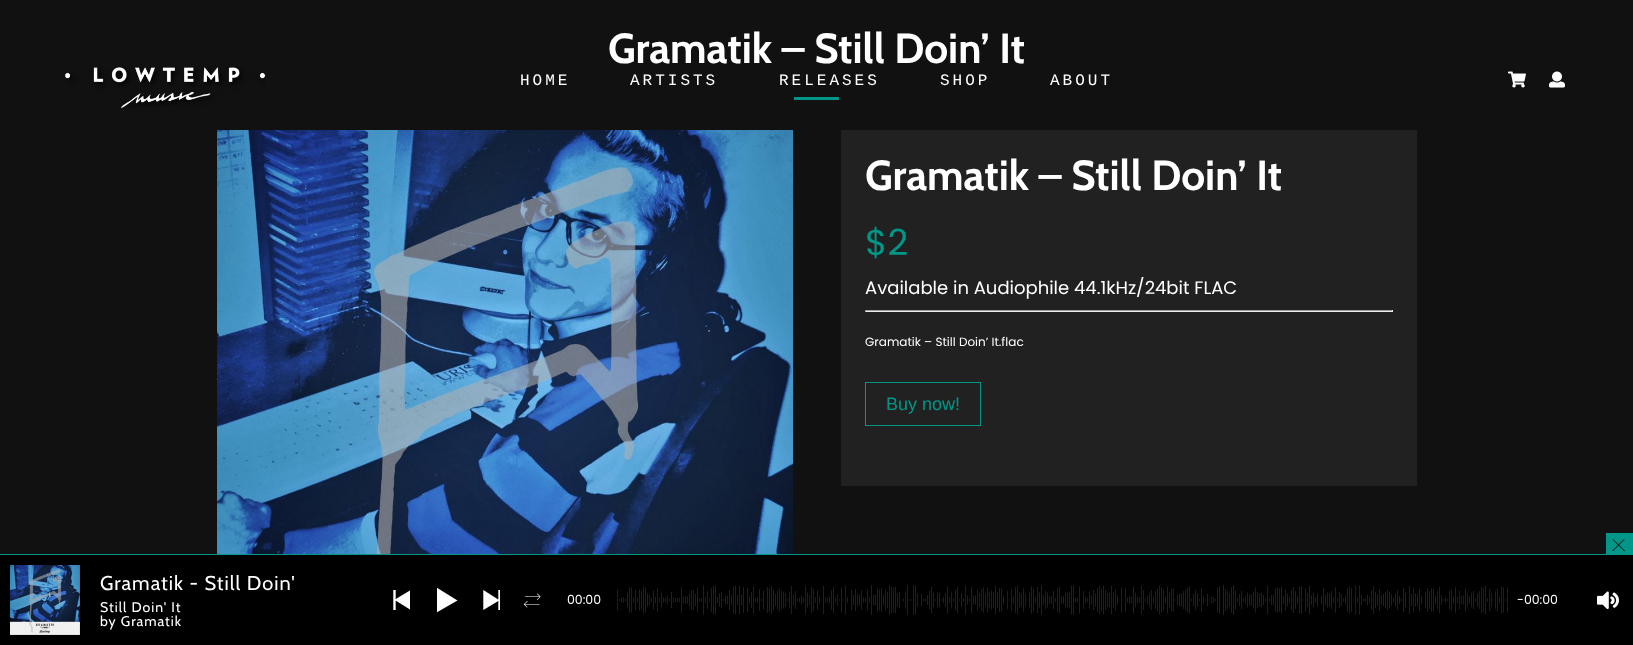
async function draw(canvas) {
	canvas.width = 1633;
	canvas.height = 645;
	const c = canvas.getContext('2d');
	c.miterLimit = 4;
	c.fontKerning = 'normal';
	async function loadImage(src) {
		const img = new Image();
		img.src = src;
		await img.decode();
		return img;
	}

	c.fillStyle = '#111';
	c.fillRect(0, 0, 1633, 645);
	c.font = 'bold 42px Cabin';
	c.fillStyle = '#fff';
	c.fillText('Gramatik – Still Doin’ It', 608, 63);
	c.fillStyle = '#009688';
	c.fillRect(794, 97, 45, 3);
	c.drawImage(await loadImage('img1.png'), 217, 130, 576, 424);
	c.fillStyle = '#212121';
	c.fillRect(841, 130, 576, 356);
	c.fillStyle = '#fff';
	c.fillText('Gramatik – Still Doin’ It', 865, 190);
	c.font = '36px Poppins';
	c.fillStyle = '#009688';
	c.fillText('$2', 865, 255);
	c.font = '18px Poppins';
	c.fillStyle = '#fff';
	c.fillText('Available in Audiophile 44.1kHz/24bit FLAC', 865, 294);
	for (const [x, y, w, h, color] of [
		[865, 310, 528, 1, '#9f9f9f'],
		[1392, 310, 1, 2, '#eee'],
		[865, 311, 528, 1, '#eee'],
		[865, 310, 1, 2, '#9f9f9f'],
	]) {
		c.fillStyle = color;
		c.fillRect(x, y, w, h);
	}
	c.font = '12px Poppins';
	c.fillStyle = '#fff';
	c.fillText('Gramatik – Still Doin’ It.flac', 865, 346);
	c.strokeStyle = '#009688';
	c.strokeRect(865.5, 382.5, 115, 43);
	c.font = '18px Liberation Sans';
	c.fillStyle = '#009688';
	c.fillText('Buy now!', 886, 410);
	c.drawImage(await loadImage('img2.png'), 65, 67, 200, 41);
	c.letterSpacing = '3px';
	c.font = '16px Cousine';
	c.fillStyle = '#fff';
	for (const [text, x, y] of [
		['HOME', 520, 85],
		['ARTISTS', 630, 85],
		['RELEASES', 779, 85],
		['SHOP', 940, 85],
		['ABOUT', 1050, 85],
	]) {
		c.fillText(text, x, y);
	}
	c.drawImage(await loadImage('img3.png'), 1508, 71, 18, 17);
	c.drawImage(await loadImage('img4.png'), 1549, 71, 16, 17);
	c.fillStyle = '#009688';
	c.fillRect(1606, 533, 27, 21);
	c.fillStyle = '#000';
	c.beginPath();
	c.moveTo(1613, 549.5);
	c.lineTo(1614, 550.5);
	c.lineTo(1613, 551);
	c.lineTo(1612.5, 550.5);
	c.closePath();
	c.fill();
	c.beginPath();
	c.moveTo(1624, 539);
	c.lineTo(1624.5, 539.5);
	c.lineTo(1613, 551);
	c.lineTo(1612.5, 550.5);
	c.closePath();
	c.fill();
	c.beginPath();
	c.moveTo(1623, 550.5);
	c.lineTo(1624, 549.5);
	c.lineTo(1624.5, 550.5);
	c.lineTo(1624, 551);
	c.closePath();
	c.fill();
	c.beginPath();
	c.moveTo(1612.5, 539.5);
	c.lineTo(1613, 539);
	c.lineTo(1624.5, 550.5);
	c.lineTo(1624, 551);
	c.closePath();
	c.fill();
	c.fillRect(0, 555, 1633, 90);
	c.fillStyle = '#009688';
	c.fillRect(0, 554, 1633, 1);
	c.drawImage(await loadImage('img5.png'), 10, 565, 70, 70);
	c.letterSpacing = '1px';
	c.font = '20px Cabin';
	c.fillStyle = '#fff';
	c.fillText('Gramatik - Still Doin\'', 100, 590);
	c.font = '14px Cabin';
	c.fillText('Still Doin\' It', 100, 612);
	c.fillText('by Gramatik', 100, 626);
	c.drawImage(await loadImage('img6.png'), 393, 590, 17, 20);
	c.save();
	c.beginPath();
	c.rect(437, 588, 21, 25);
	c.clip();
	c.beginPath();
	c.moveTo(436.5, 587.5);
	c.lineTo(457.5, 600.5);
	c.lineTo(436.5, 612.5);
	c.closePath();
	c.fill();
	c.restore();
	c.drawImage(await loadImage('img7.png'), 483, 590, 17, 20);
	c.drawImage(await loadImage('img8.png'), 523, 593, 18, 15);
	c.drawImage(await loadImage('img9.png'), 617, 585, 891, 30);
	c.drawImage(await loadImage('img10.png'), 1597, 591, 22, 19);
	c.letterSpacing = '0px';
	c.font = '12.5px Poppins';
	c.fillText('00:00', 567, 604);
	c.fillText('-00:00', 1517, 604);
}

draw(document.querySelector('canvas'));
